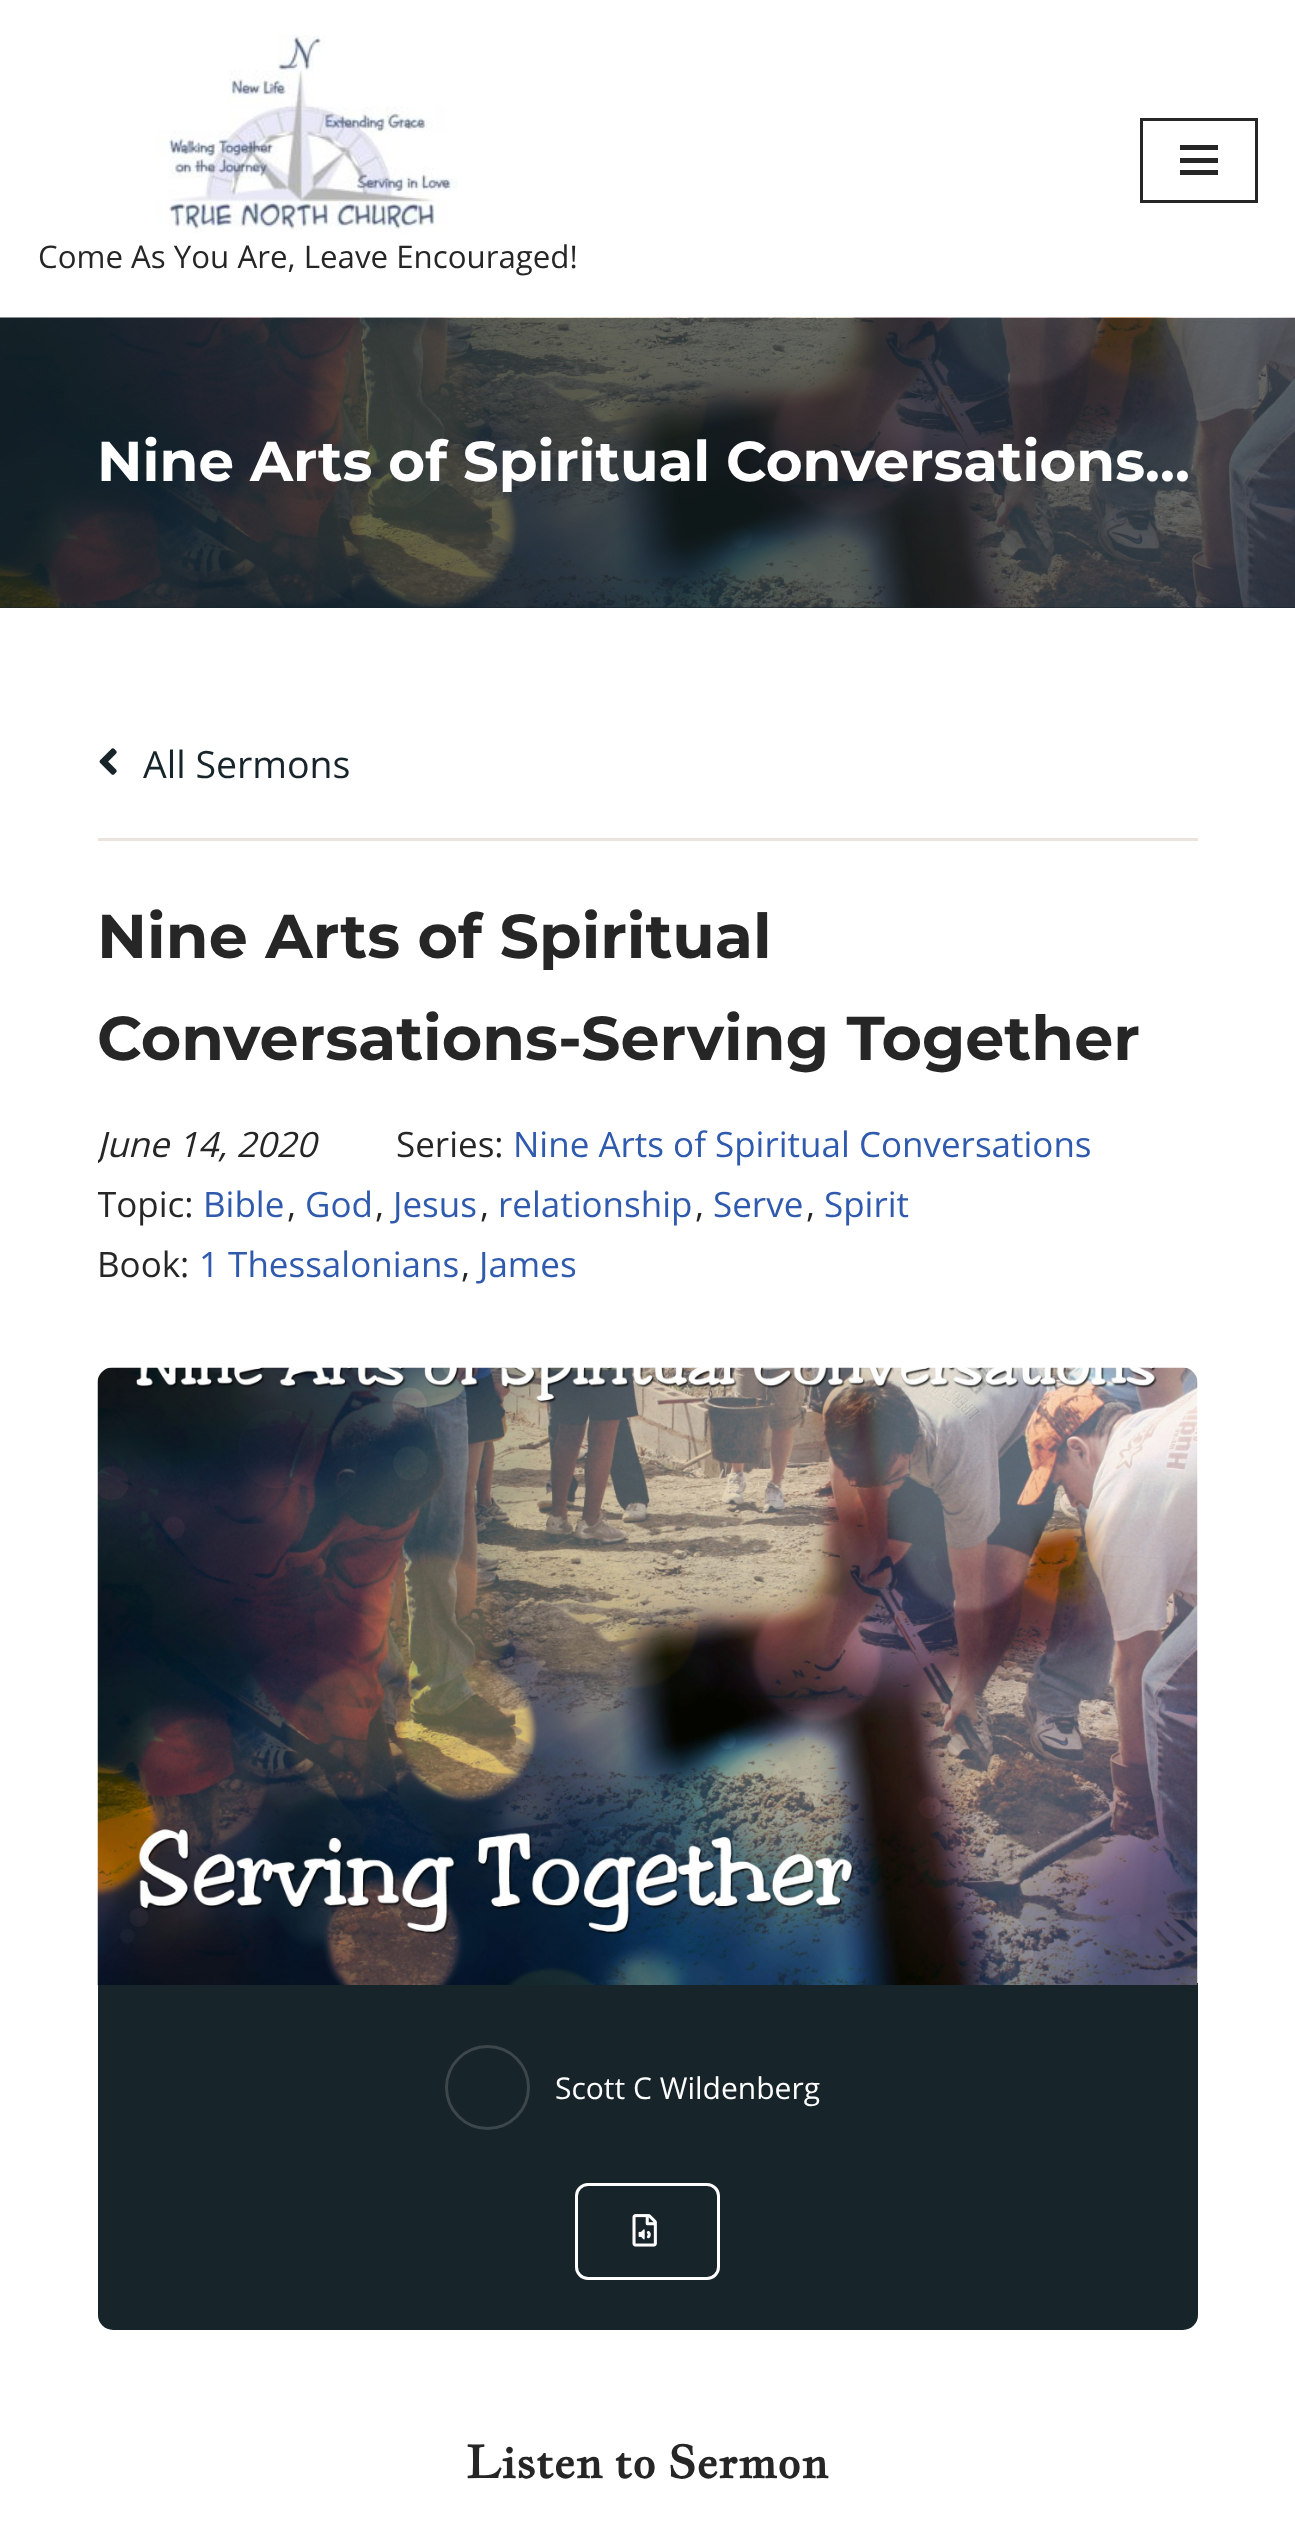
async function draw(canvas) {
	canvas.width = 1295;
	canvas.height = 2545;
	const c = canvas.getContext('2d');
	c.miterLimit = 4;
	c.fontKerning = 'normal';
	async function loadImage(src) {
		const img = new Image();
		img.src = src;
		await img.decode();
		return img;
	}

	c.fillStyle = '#fff';
	c.fillRect(0, 0, 1295, 2545);
	c.strokeStyle = '#272626';
	c.lineWidth = 3;
	c.strokeRect(1141.5, 119.5, 115, 82);
	for (const [x, y, w, h, color] of [
		[1180, 145, 38, 5, '#272626'],
		[1180, 158, 38, 5, '#272626'],
		[1180, 170, 38, 5, '#272626'],
	]) {
		c.fillStyle = color;
		c.fillRect(x, y, w, h);
	}
	c.drawImage(await loadImage('img1.png'), 157, 35, 301, 198);
	c.font = '31.25px Open Sans';
	c.fillText('Come As You Are, Leave Encouraged!', 38, 268);
	c.fillStyle = '#17242a';
	c.fillRect(0, 607, 1295, 1);
	c.drawImage(await loadImage('img2.png'), 0, 317, 1295, 291);
	c.fillStyle = '#17242a99';
	c.fillRect(0, 318, 1295, 290);
	c.font = 'bold 56.25px Montserrat';
	c.fillStyle = '#fff';
	c.fillText('Nine Arts of Spiritual Conversations…', 97, 481);
	c.fillStyle = '#e9e5de';
	c.fillRect(98, 838, 1100, 3);
	c.drawImage(await loadImage('img3.png'), 99, 748, 18, 27);
	c.font = '37.5px Open Sans';
	c.fillStyle = '#17242a';
	c.fillText('All Sermons', 143, 778);
	c.font = 'bold 61.9px Montserrat';
	c.fillStyle = '#272626';
	c.fillText('Nine Arts of Spiritual', 97, 958);
	c.fillText('Conversations-Serving Together', 97, 1060);
	c.save();
	c.beginPath();
	c.rect(98, 1113, 1100, 255);
	c.clip();
	c.font = 'italic 35px Open Sans';
	c.fillText('June 14, 2020', 97, 1157);
	c.restore();
	c.font = '35px Open Sans';
	c.fillText('Series:', 396, 1157);
	c.fillStyle = '#2f5aae';
	c.fillText('Nine Arts of Spiritual Conversations', 513, 1157);
	c.save();
	c.beginPath();
	c.rect(98, 1113, 1100, 255);
	c.clip();
	c.fillStyle = '#272626';
	c.fillText('Topic:', 97, 1217);
	c.restore();
	c.fillText('Bible', 203, 1217);
	c.fillStyle = '#272626';
	c.fillText(',', 287, 1217);
	c.fillStyle = '#2f5aae';
	c.fillText('God', 305, 1217);
	c.fillStyle = '#272626';
	c.fillText(',', 375, 1217);
	c.fillStyle = '#2f5aae';
	c.fillText('Jesus', 393, 1217);
	c.fillStyle = '#272626';
	c.fillText(',', 480, 1217);
	c.fillStyle = '#2f5aae';
	c.fillText('relationship', 498, 1217);
	c.fillStyle = '#272626';
	c.fillText(',', 695, 1217);
	c.fillStyle = '#2f5aae';
	c.fillText('Serve', 713, 1217);
	c.fillStyle = '#272626';
	c.fillText(',', 806, 1217);
	c.fillStyle = '#2f5aae';
	c.fillText('Spirit', 824, 1217);
	c.fillStyle = '#272626';
	c.fillText('Book:', 97, 1277);
	c.fillStyle = '#2f5aae';
	c.fillText('1 Thessalonians', 199, 1277);
	c.fillStyle = '#272626';
	c.fillText(',', 461, 1277);
	c.fillStyle = '#2f5aae';
	c.fillText('James', 479, 1277);
	c.fillStyle = '#17242a';
	c.beginPath();
	c.roundRect(98, 1983, 1100, 347, [0, 0, 15, 15]);
	c.fill();
	c.drawImage(await loadImage('img4.png'), 97, 1367, 1101, 618);
	c.beginPath();
	c.arc(487.5, 2087.5, 41, 0, 2 * Math.PI);
	c.strokeStyle = '#3c474c';
	c.stroke();
	c.font = '30px Open Sans';
	c.fillStyle = '#fff';
	c.fillText('Scott C Wildenberg', 555, 2099);
	c.beginPath();
	c.roundRect(576.5, 2184.5, 142, 94, 11.5);
	c.strokeStyle = '#fff';
	c.stroke();
	c.drawImage(await loadImage('img5.png'), 632, 2214, 25, 33);
	c.font = 'bold 45px Jacques Francois';
	c.fillStyle = '#272626';
	c.fillText('Listen to Sermon', 466, 2478);
}

draw(document.querySelector('canvas'));
